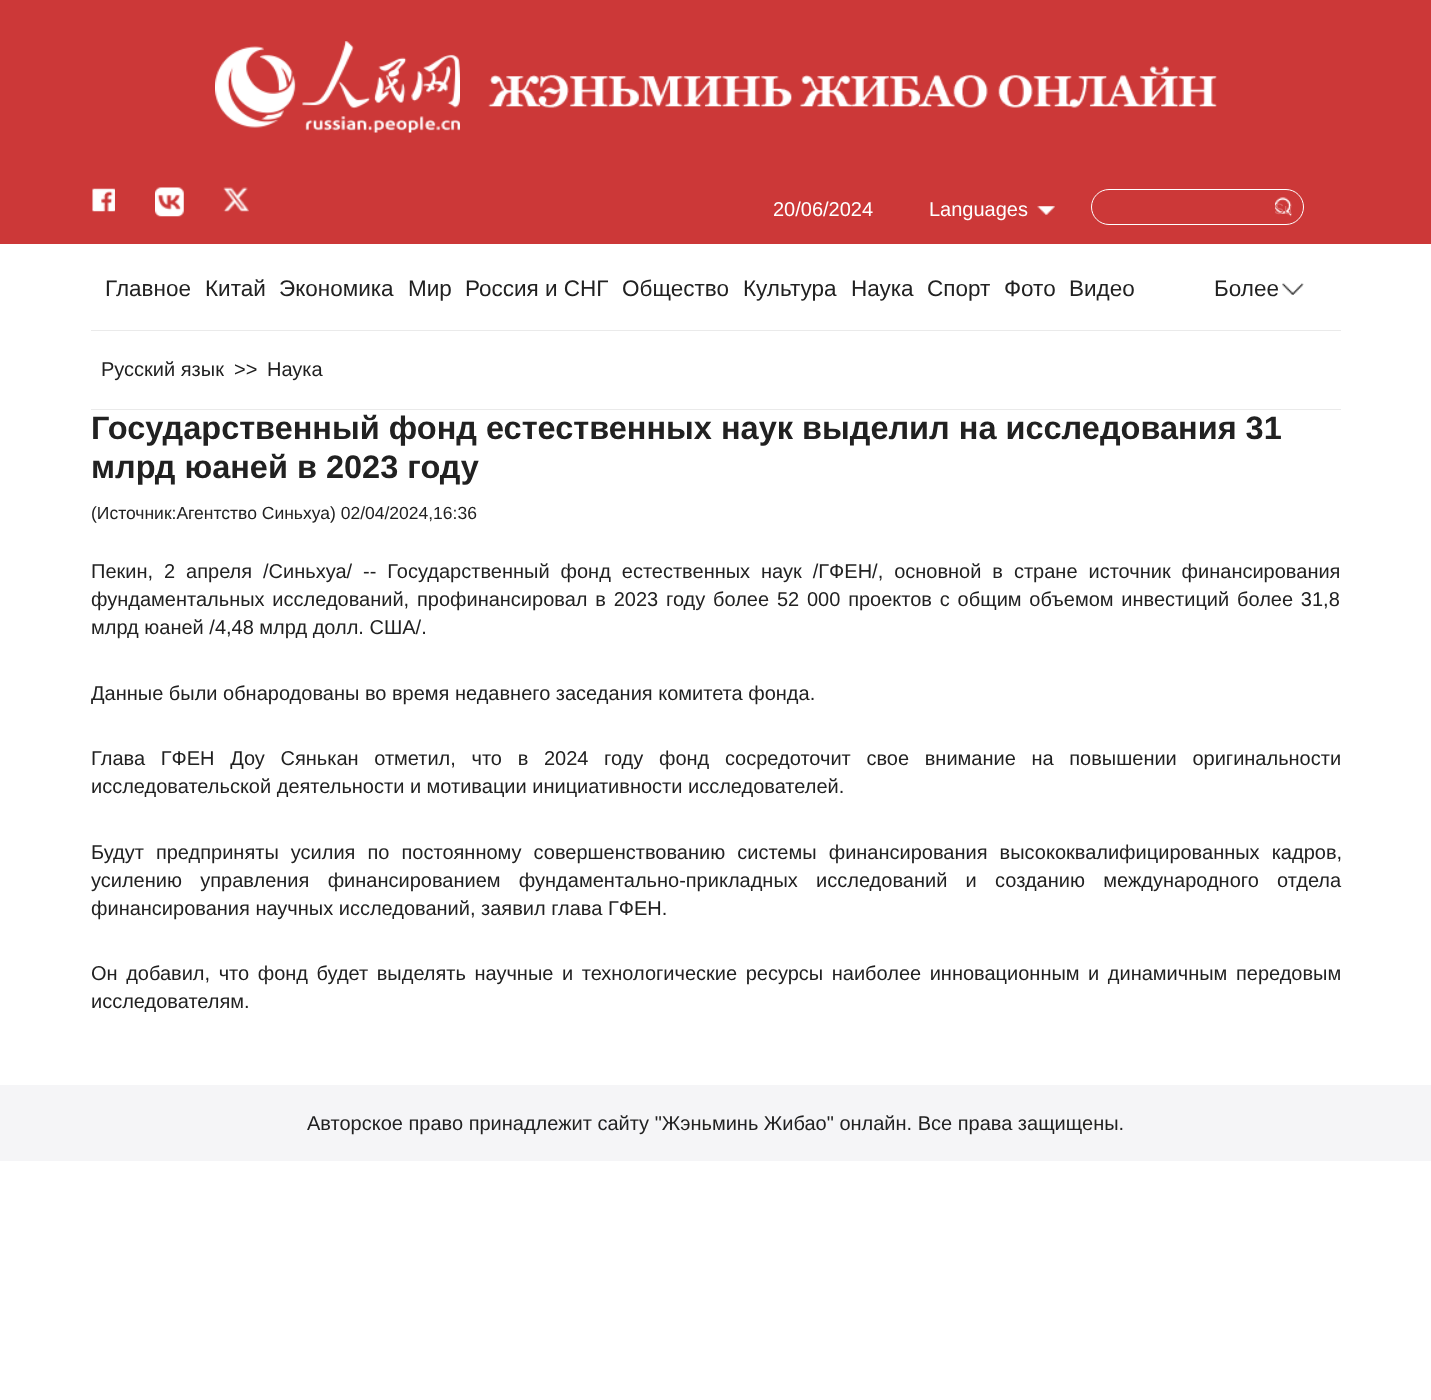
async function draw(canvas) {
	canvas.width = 1431;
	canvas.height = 1400;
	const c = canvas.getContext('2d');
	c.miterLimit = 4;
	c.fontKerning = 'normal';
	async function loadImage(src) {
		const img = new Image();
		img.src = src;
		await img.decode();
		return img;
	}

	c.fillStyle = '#fff';
	c.fillRect(0, 0, 1431, 1400);
	c.fillStyle = '#cc3838';
	c.fillRect(0, 0, 1431, 244);
	c.drawImage(await loadImage('img1.png'), 215, 41, 245, 92);
	c.drawImage(await loadImage('img2.png'), 488, 66, 729, 42);
	c.drawImage(await loadImage('img3.png'), 92, 188, 23, 24);
	c.drawImage(await loadImage('img4.png'), 155, 187, 29, 30);
	c.drawImage(await loadImage('img5.png'), 223, 187, 26, 25);
	c.font = '20px Liberation Sans';
	c.fillStyle = '#fff';
	c.fillText('20/06/2024', 773, 216);
	c.fillText('Languages', 929, 216);
	c.drawImage(await loadImage('img6.png'), 1037, 206, 18, 9);
	c.beginPath();
	c.roundRect(1091.5, 189.5, 212, 35, 17.5);
	c.strokeStyle = '#fff';
	c.stroke();
	c.drawImage(await loadImage('img7.png'), 1275, 197, 17, 20);
	c.save();
	c.beginPath();
	c.rect(1275, 198, 16, 18);
	c.clip();
	c.font = '15px Liberation Sans';
	c.fillStyle = '#d86767';
	c.fillText('Su', 1274, 214);
	c.restore();
	c.fillStyle = '#eaeaea';
	c.fillRect(91, 330, 1250, 1);
	c.font = '22.5px Liberation Sans';
	c.fillStyle = '#212121';
	for (const [text, x, y] of [
		['Главное', 105, 296],
		['Китай', 205, 296],
		['Экономика', 279, 296],
		['Мир', 408, 296],
		['Россия и СНГ', 465, 296],
		['Общество', 622, 296],
		['Культура', 743, 296],
		['Наука', 851, 296],
		['Cпорт', 927, 296],
		['Фото', 1004, 296],
		['Видео', 1069, 296],
		['Более', 1214, 296],
	]) {
		c.fillText(text, x, y);
	}
	c.drawImage(await loadImage('img8.png'), 1282, 283, 22, 12);
	c.fillStyle = '#eaeaea';
	c.fillRect(91, 409, 1250, 1);
	c.font = '20px Liberation Sans';
	c.fillStyle = '#212121';
	for (const [text, x, y] of [
		['Русский язык', 101, 376],
		['>>', 234, 376],
		['Наука', 267, 376],
	]) {
		c.fillText(text, x, y);
	}
	c.font = 'bold 32.5px Liberation Sans';
	c.fillText('Государственный фонд естественных наук выделил на исследования 31', 91, 439);
	c.fillText('млрд юаней в 2023 году', 91, 478);
	c.font = '17.5px Liberation Sans';
	c.fillText('(Источник:Агентство Синьхуа) 02/04/2024,16:36', 91, 519);
	c.wordSpacing = '5.4px';
	c.font = '20px Liberation Sans';
	c.fillText('Пекин, 2 апреля /Синьхуа/ -- Государственный фонд естественных наук /ГФЕН/, основной в стране источник финансирования', 91, 578);
	c.wordSpacing = '2.25px';
	c.fillText('фундаментальных исследований, профинансировал в 2023 году более 52 000 проектов с общим объемом инвестиций более 31,8', 91, 606);
	c.wordSpacing = '0px';
	c.fillText('млрд юаней /4,48 млрд долл. США/.', 91, 634);
	c.fillText('Данные были обнародованы во время недавнего заседания комитета фонда.', 91, 700);
	c.wordSpacing = '10.1px';
	c.fillText('Глава ГФЕН Доу Сянькан отметил, что в 2024 году фонд сосредоточит свое внимание на повышении оригинальности', 91, 765);
	c.wordSpacing = '0px';
	c.fillText('исследовательской деятельности и мотивации инициативности исследователей.', 91, 793);
	c.wordSpacing = '6.5px';
	c.fillText('Будут предприняты усилия по постоянному совершенствованию системы финансирования высококвалифицированных кадров,', 91, 859);
	c.wordSpacing = '12.75px';
	c.fillText('усилению управления финансированием фундаментально-прикладных исследований и созданию международного отдела', 91, 887);
	c.wordSpacing = '0px';
	c.fillText('финансирования научных исследований, заявил глава ГФЕН.', 91, 915);
	c.wordSpacing = '3px';
	c.fillText('Он добавил, что фонд будет выделять научные и технологические ресурсы наиболее инновационным и динамичным передовым', 91, 980);
	c.wordSpacing = '0px';
	c.fillText('исследователям.', 91, 1008);
	c.fillStyle = '#f5f5f7';
	c.fillRect(0, 1085, 1431, 76);
	c.fillStyle = '#212121';
	c.fillText('Авторское право принадлежит сайту "Жэньминь Жибао" онлайн. Все права защищены.', 307, 1130);
}

draw(document.querySelector('canvas'));
